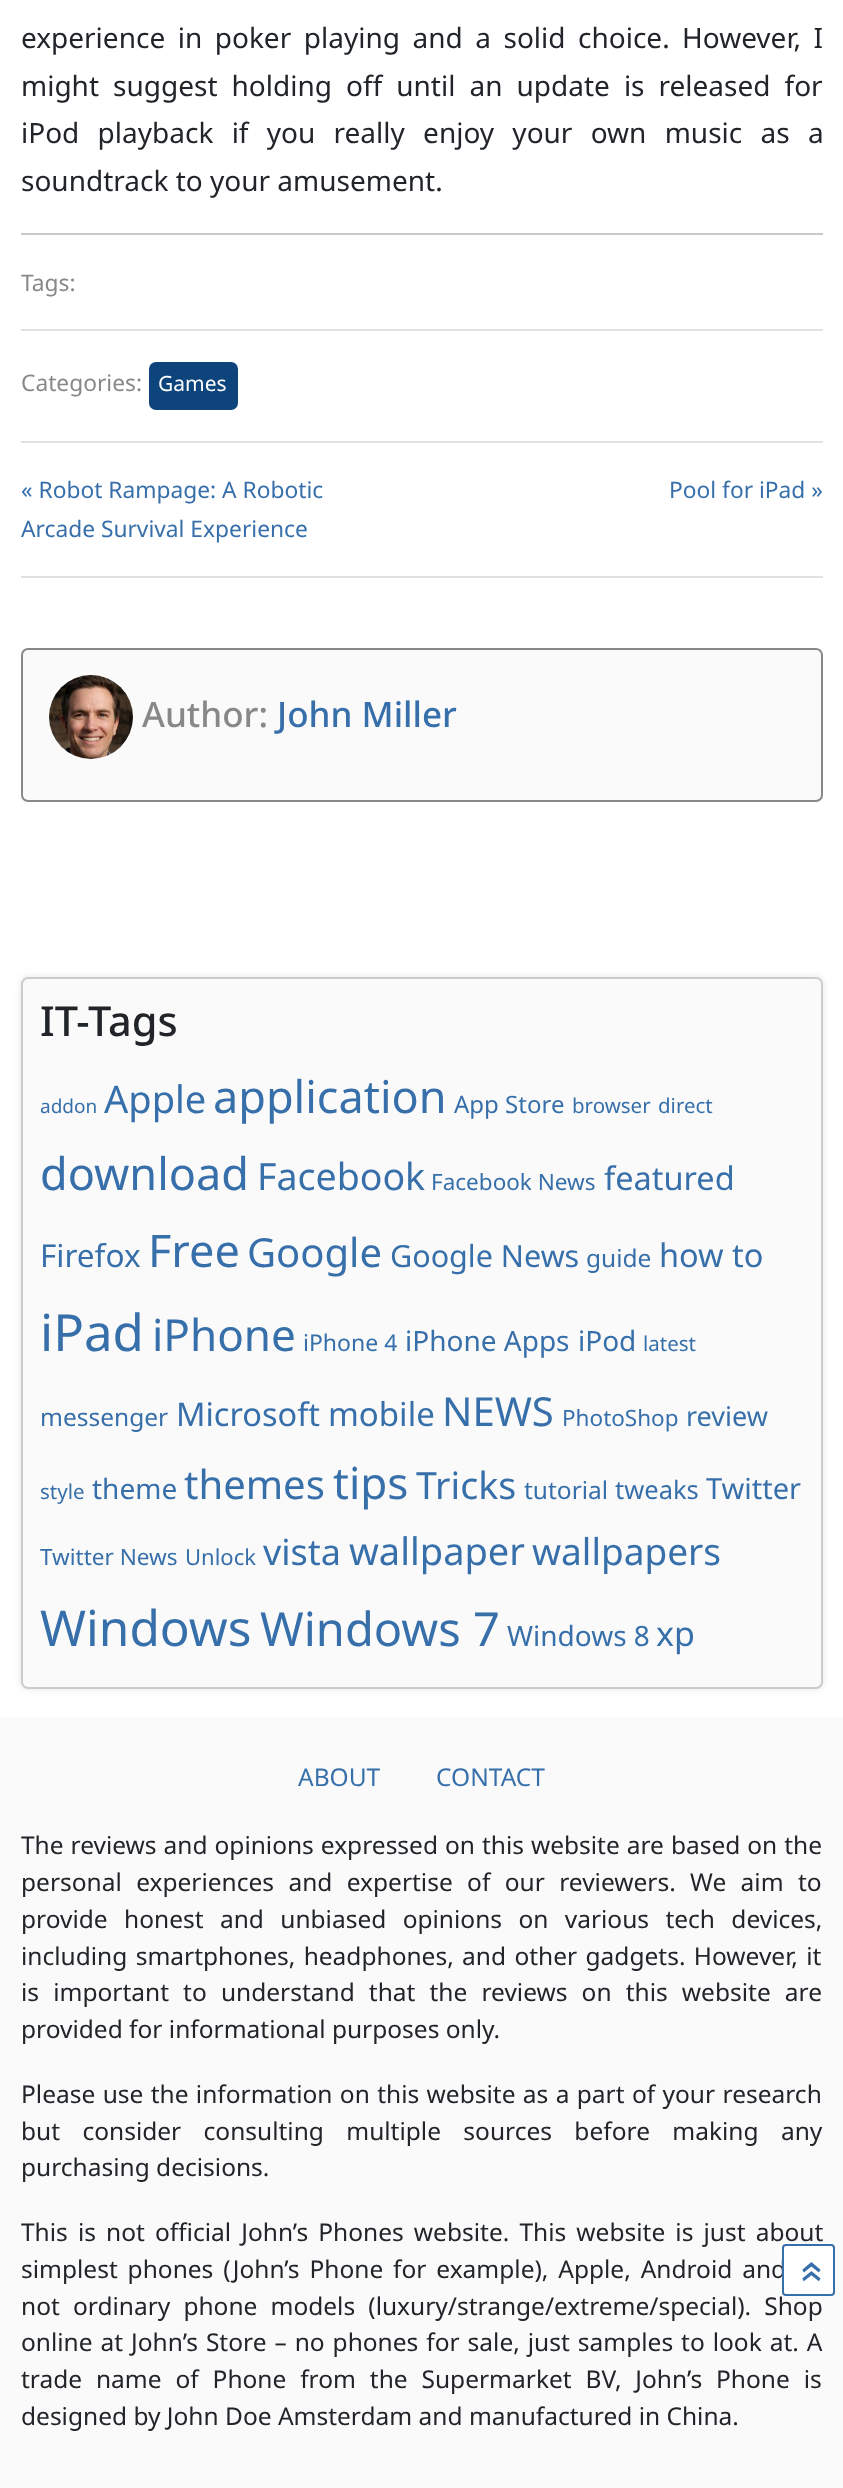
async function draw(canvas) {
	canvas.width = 843;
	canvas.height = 2488;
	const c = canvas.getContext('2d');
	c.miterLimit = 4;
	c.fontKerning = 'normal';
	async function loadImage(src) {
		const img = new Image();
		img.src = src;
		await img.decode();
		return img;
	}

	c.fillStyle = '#fff';
	c.fillRect(0, 0, 843, 2488);
	c.wordSpacing = '5.25px';
	c.font = '28px Noto Sans';
	c.fillStyle = '#212529';
	c.fillText('experience in poker playing and a solid choice.', 21, 48);
	c.fillText('However, I', 682, 48);
	c.wordSpacing = '6.75px';
	c.fillText('might suggest holding off until an update is released for', 21, 96);
	c.wordSpacing = '11px';
	c.fillText('iPod playback if you really enjoy your own music as a', 21, 143);
	c.wordSpacing = '0px';
	c.fillText('soundtrack to your amusement.', 21, 191);
	c.fillStyle = '#c8c9ca';
	c.fillRect(21, 233, 802, 2);
	c.font = '22.75px Noto Sans';
	c.fillStyle = '#888';
	c.fillText('Tags:', 21, 291);
	c.fillStyle = '#e1e1e1';
	c.fillRect(21, 329, 802, 2);
	c.fillStyle = '#888';
	c.fillText('Categories:', 21, 391);
	c.fillStyle = '#0e447c';
	c.beginPath();
	c.roundRect(149, 362, 89, 48, 7);
	c.fill();
	c.font = '21px Noto Sans';
	c.fillStyle = '#fff';
	c.fillText('Games', 158, 391);
	c.fillStyle = '#e1e1e1';
	c.fillRect(21, 441, 802, 2);
	c.font = '22.75px Noto Sans';
	c.fillStyle = '#376faa';
	for (const [text, x, y] of [
		['« Robot Rampage: A Robotic', 21, 498],
		['Arcade Survival Experience', 21, 537],
		['Pool for iPad »', 669, 498],
	]) {
		c.fillText(text, x, y);
	}
	c.fillStyle = '#e1e1e1';
	c.fillRect(21, 576, 802, 2);
	c.fillStyle = '#fafafa';
	c.beginPath();
	c.roundRect(22, 649, 800, 152, 6);
	c.fill();
	c.strokeStyle = '#888';
	c.lineWidth = 2;
	c.stroke();
	c.drawImage(await loadImage('img1.png'), 49, 675, 84, 84);
	c.font = '500 35px Noto Sans';
	c.fillStyle = '#888';
	c.fillText('Author:', 142, 727);
	c.fillStyle = '#376faa';
	c.fillText('John Miller', 277, 727);
	c.fillStyle = '#0000001a';
	c.filter = 'blur(3.5px)';
	c.beginPath();
	c.roundRect(21, 977, 802, 712, 7);
	c.fill();
	c.filter = 'none';
	c.fillStyle = '#fafafa';
	c.beginPath();
	c.roundRect(22, 978, 800, 710, 6);
	c.fill();
	c.strokeStyle = '#ccc';
	c.stroke();
	c.font = '500 41.5px Noto Sans';
	c.fillStyle = '#212529';
	c.fillText('IT-Tags', 40, 1036);
	c.font = '19px Noto Sans';
	c.fillStyle = '#376faa';
	c.fillText('addon', 40, 1113);
	c.font = '38px Noto Sans';
	c.fillText('Apple', 104, 1113);
	c.font = '45px Noto Sans';
	c.fillText('application', 213, 1113);
	c.font = '24px Noto Sans';
	c.fillText('App Store', 454, 1113);
	c.font = '20.5px Noto Sans';
	c.fillText('browser', 572, 1113);
	c.fillText('direct', 658, 1113);
	c.font = '45px Noto Sans';
	c.fillText('download', 40, 1190);
	c.font = '37.5px Noto Sans';
	c.fillText('Facebook', 257, 1190);
	c.font = '22.5px Noto Sans';
	c.fillText('Facebook News', 431, 1190);
	c.font = '32.5px Noto Sans';
	c.fillText('featured', 604, 1190);
	c.font = '31.5px Noto Sans';
	c.fillText('Firefox', 40, 1267);
	c.font = '45px Noto Sans';
	c.fillText('Free', 148, 1267);
	c.font = '40px Noto Sans';
	c.fillText('Google', 247, 1267);
	c.font = '30.5px Noto Sans';
	c.fillText('Google News', 390, 1267);
	c.font = '24.5px Noto Sans';
	c.fillText('guide', 586, 1267);
	c.font = '32.5px Noto Sans';
	c.fillText('how to', 659, 1267);
	c.font = '51px Noto Sans';
	c.fillText('iPad', 40, 1351);
	c.font = '44px Noto Sans';
	c.fillText('iPhone', 152, 1351);
	c.font = '23px Noto Sans';
	c.fillText('iPhone 4', 303, 1351);
	c.font = '28px Noto Sans';
	c.fillText('iPhone Apps', 405, 1351);
	c.fillText('iPod', 578, 1351);
	c.font = '20.5px Noto Sans';
	c.fillText('latest', 643, 1351);
	c.font = '24.5px Noto Sans';
	c.fillText('messenger', 40, 1426);
	c.font = '32.5px Noto Sans';
	c.fillText('Microsoft', 176, 1426);
	c.font = '33px Noto Sans';
	c.fillText('mobile', 328, 1426);
	c.font = '40px Noto Sans';
	c.fillText('NEWS', 442, 1426);
	c.font = '22.5px Noto Sans';
	c.fillText('PhotoShop', 562, 1426);
	c.font = '27px Noto Sans';
	c.fillText('review', 686, 1426);
	c.font = '20.5px Noto Sans';
	c.fillText('style', 40, 1499);
	c.font = '28px Noto Sans';
	c.fillText('theme', 92, 1499);
	c.font = '40px Noto Sans';
	c.fillText('themes', 184, 1499);
	c.font = '44px Noto Sans';
	c.fillText('tips', 333, 1499);
	c.font = '37.5px Noto Sans';
	c.fillText('Tricks', 416, 1499);
	c.font = '24.5px Noto Sans';
	c.fillText('tutorial', 524, 1499);
	c.font = '25.5px Noto Sans';
	c.fillText('tweaks', 615, 1499);
	c.font = '29px Noto Sans';
	c.fillText('Twitter', 706, 1499);
	c.font = '22.5px Noto Sans';
	c.fillText('Twitter News', 40, 1565);
	c.font = '22px Noto Sans';
	c.fillText('Unlock', 185, 1565);
	c.font = '36px Noto Sans';
	c.fillText('vista', 263, 1565);
	c.font = '38px Noto Sans';
	c.fillText('wallpaper', 349, 1565);
	c.font = '37px Noto Sans';
	c.fillText('wallpapers', 532, 1565);
	c.font = '49.5px Noto Sans';
	c.fillText('Windows', 40, 1646);
	c.font = '47px Noto Sans';
	c.fillText('Windows 7', 260, 1646);
	c.font = '28px Noto Sans';
	c.fillText('Windows 8', 507, 1646);
	c.font = '34px Noto Sans';
	c.fillText('xp', 656, 1646);
	c.fillStyle = '#fafafa';
	c.fillRect(0, 1717, 843, 771);
	c.font = '24.5px Noto Sans';
	c.fillStyle = '#376faa';
	c.fillText('ABOUT', 298, 1786);
	c.fillText('CONTACT', 436, 1786);
	c.wordSpacing = '0.6px';
	c.fillStyle = '#212529';
	c.fillText('The reviews and opinions expressed on this website are based on the', 21, 1854);
	c.wordSpacing = '8px';
	c.fillText('personal experiences and expertise of our reviewers. We aim to', 21, 1891);
	c.wordSpacing = '10px';
	c.fillText('provide honest and unbiased opinions on various tech devices,', 21, 1928);
	c.wordSpacing = '2px';
	c.fillText('including smartphones, headphones, and other gadgets. However, it', 21, 1965);
	c.wordSpacing = '7.75px';
	c.fillText('is important to understand that the reviews on this website are', 21, 2001);
	c.wordSpacing = '0px';
	c.fillText('provided for informational purposes only.', 21, 2038);
	c.wordSpacing = '1px';
	c.fillText('Please use the information on this website as a part of your research', 21, 2103);
	c.wordSpacing = '16px';
	c.fillText('but consider consulting multiple sources before making any', 21, 2140);
	c.wordSpacing = '0px';
	c.fillText('purchasing decisions.', 21, 2176);
	c.wordSpacing = '3.75px';
	c.fillText('This is not official John’s Phones website. This website is just about', 21, 2241);
	c.wordSpacing = '3.5px';
	c.fillText('simplest phones (John’s Phone for example), Apple, Android and', 21, 2278);
	c.wordSpacing = '6.75px';
	c.fillText('not ordinary phone models (luxury/strange/extreme/special). Shop', 21, 2315);
	c.wordSpacing = '1.6px';
	c.fillText('online at John’s Store – no phones for sale, just samples to look at. A', 21, 2351);
	c.wordSpacing = '7.5px';
	c.fillText('trade name of Phone from the Supermarket BV, John’s Phone is', 21, 2388);
	c.wordSpacing = '0px';
	c.fillText('designed by John Doe Amsterdam and manufactured in China.', 21, 2425);
	c.fillStyle = '#fff';
	c.beginPath();
	c.roundRect(783, 2245, 51, 50, 3);
	c.fill();
	c.strokeStyle = '#376faa';
	c.stroke();
	c.font = '44px Noto Sans';
	c.fillStyle = '#376faa';
	c.save();
	c.translate(823, 2283);
	c.rotate(-90 * Math.PI / 180);
	c.fillText('»', 0, 0);
	c.restore();
}

draw(document.querySelector('canvas'));
